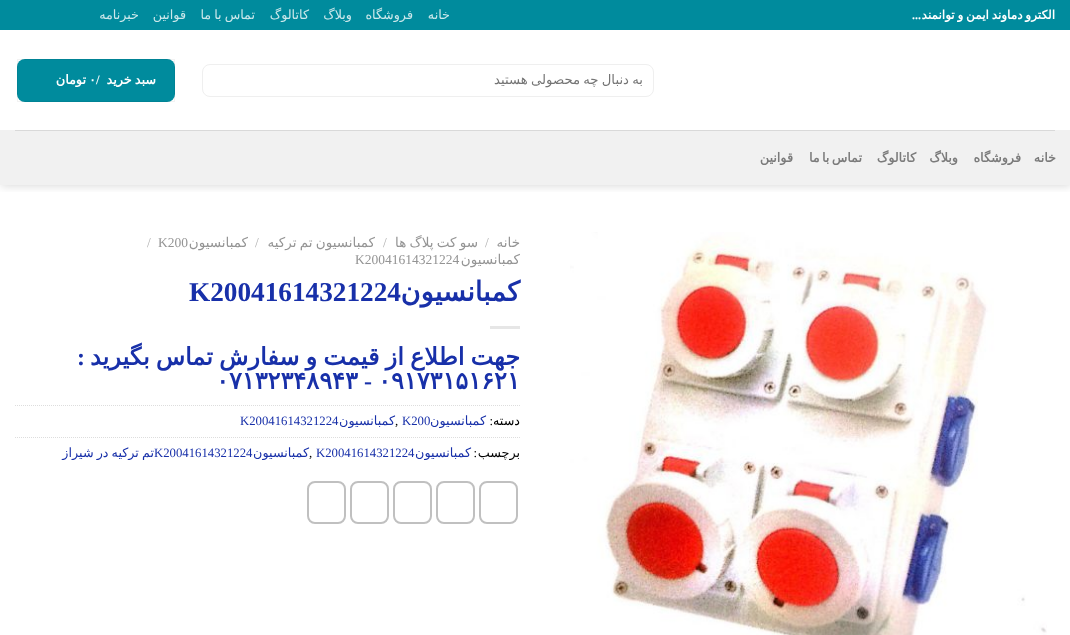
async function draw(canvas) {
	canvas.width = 1070;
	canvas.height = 635;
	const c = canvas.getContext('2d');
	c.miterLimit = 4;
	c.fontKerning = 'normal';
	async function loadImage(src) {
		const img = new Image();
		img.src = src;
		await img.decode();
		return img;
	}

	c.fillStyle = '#fff';
	c.fillRect(0, 0, 1070, 635);
	c.save();
	c.beginPath();
	c.rect(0, 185, 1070, 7);
	c.clip();
	c.fillStyle = '#00000026';
	c.filter = 'blur(5px)';
	c.beginPath();
	c.rect(1, 1, 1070, 185);
	c.fill();
	c.filter = 'none';
	c.restore();
	c.fillStyle = '#008b9d';
	c.fillRect(0, 0, 1070, 30);
	c.wordSpacing = '-1px';
	c.direction = 'rtl';
	c.font = 'bold 12px DejaVu Sans';
	c.fillStyle = '#fff';
	c.fillText('الکترو دماوند ایمن و توانمند', 1055, 19);
	c.wordSpacing = '0px';
	c.font = 'bold 12px Liberation Serif';
	c.fillText('...', 921, 19);
	c.font = '12.75px DejaVu Sans';
	c.fillStyle = '#cce8eb';
	for (const [text, x, y] of [
		['خانه', 450, 19],
		['فروشگاه', 413, 19],
		['وبلاگ', 352, 19],
		['کاتالوگ', 309, 19],
	]) {
		c.fillText(text, x, y);
	}
	c.wordSpacing = '-1px';
	c.fillText('تماس با ما', 255, 19);
	c.wordSpacing = '0px';
	c.fillText('قوانین', 186, 19);
	c.fillText('خبرنامه', 139, 19);
	c.beginPath();
	c.roundRect(202.5, 64.5, 451, 32, 7.5);
	c.strokeStyle = '#efefef';
	c.stroke();
	c.save();
	c.beginPath();
	c.rect(216, 72, 427, 16);
	c.clip();
	c.wordSpacing = '-1px';
	c.font = '13.25px DejaVu Sans';
	c.fillStyle = '#757575';
	c.fillText('به دنبال چه محصولی هستید', 643, 84);
	c.restore();
	c.fillStyle = '#008b9d';
	c.beginPath();
	c.roundRect(17, 59, 158, 43, 8);
	c.fill();
	c.strokeStyle = '#0000000d';
	c.strokeRect(17.5, 59.5, 157, 42);
	c.wordSpacing = '-1px';
	c.font = 'bold 12.75px DejaVu Sans';
	c.fillStyle = '#fff';
	c.fillText('سبد خرید', 156, 84);
	c.wordSpacing = '0px';
	c.direction = 'ltr';
	c.font = 'bold 12.75px Liberation Serif';
	c.fillText('/', 96, 84);
	c.font = 'bold 12.75px DejaVu Sans';
	c.fillText('۰', 89, 84);
	c.direction = 'rtl';
	c.fillText('تومان', 86, 84);
	c.fillStyle = '#f1f1f1';
	c.fillRect(0, 130, 1070, 55);
	c.fillStyle = '#d9d9d9';
	c.fillRect(15, 130, 1040, 1);
	c.letterSpacing = '0.25px';
	c.fillStyle = '#7b7b7b';
	for (const [text, x, y] of [
		['خانه', 1056, 162],
		['فروشگاه', 1021, 162],
		['وبلاگ', 958, 162],
		['کاتالوگ', 916, 162],
	]) {
		c.fillText(text, x, y);
	}
	c.wordSpacing = '-2px';
	c.fillText('تماس با ما', 862, 162);
	c.wordSpacing = '0px';
	c.fillText('قوانین', 793, 162);
	c.drawImage(await loadImage('img1.png'), 570, 232, 477, 403);
	c.letterSpacing = '0px';
	c.font = '13.5px DejaVu Sans';
	c.fillStyle = '#949494';
	c.fillText('خانه', 520, 247);
	c.direction = 'ltr';
	c.font = '13.5px Liberation Serif';
	c.fillStyle = '#b2b2b2';
	c.fillText('/', 485, 247);
	c.wordSpacing = '-1px';
	c.direction = 'rtl';
	c.font = '13.5px DejaVu Sans';
	c.fillStyle = '#949494';
	c.fillText('سو کت پلاگ ها', 478, 247);
	c.wordSpacing = '0px';
	c.direction = 'ltr';
	c.font = '13.5px Liberation Serif';
	c.fillStyle = '#b2b2b2';
	c.fillText('/', 383, 247);
	c.wordSpacing = '-1px';
	c.direction = 'rtl';
	c.font = '13.5px DejaVu Sans';
	c.fillStyle = '#949494';
	c.fillText('کمبانسیون تم ترکیه', 375, 247);
	c.wordSpacing = '0px';
	c.direction = 'ltr';
	c.font = '13.5px Liberation Serif';
	c.fillStyle = '#b2b2b2';
	c.fillText('/', 255, 247);
	c.direction = 'rtl';
	c.font = '13.5px DejaVu Sans';
	c.fillStyle = '#949494';
	c.fillText('کمبانسیون', 248, 247);
	c.direction = 'ltr';
	c.font = '13.5px Liberation Serif';
	c.fillText('K200', 158, 247);
	c.fillStyle = '#b2b2b2';
	c.fillText('/', 147, 247);
	c.direction = 'rtl';
	c.font = '13.5px DejaVu Sans';
	c.fillStyle = '#949494';
	c.fillText('کمبانسیون', 520, 264);
	c.direction = 'ltr';
	c.font = '13.5px Liberation Serif';
	c.fillText('K20041614321224', 355, 264);
	c.direction = 'rtl';
	c.font = 'bold 27.25px DejaVu Sans';
	c.fillStyle = '#1830a9';
	c.fillText('کمبانسیون', 520, 301);
	c.direction = 'ltr';
	c.font = 'bold 27.25px Liberation Serif';
	c.fillText('K20041614321224', 189, 301);
	c.fillStyle = '#e6e6e6';
	c.fillRect(490, 326, 30, 3);
	c.wordSpacing = '-1.5px';
	c.direction = 'rtl';
	c.font = 'bold 24px DejaVu Sans';
	c.fillStyle = '#1830a9';
	c.fillText('جهت اطلاع از قیمت و سفارش تماس بگیرید', 520, 365);
	c.wordSpacing = '0px';
	c.font = 'bold 24px Liberation Serif';
	c.fillText(':', 85, 365);
	c.direction = 'ltr';
	c.font = 'bold 24px DejaVu Sans';
	c.fillText('۰۹۱۷۳۱۵۱۶۲۱', 378, 389);
	c.font = 'bold 24px Liberation Serif';
	c.fillText('-', 364, 389);
	c.font = 'bold 24px DejaVu Sans';
	c.fillText('۰۷۱۳۲۳۴۸۹۴۳', 216, 389);
	c.beginPath();
	c.moveTo(15, 405.5);
	c.lineTo(520, 405.5);
	c.strokeStyle = '#ddd';
	c.setLineDash([1, 1]);
	c.stroke();
	c.direction = 'rtl';
	c.font = '12.75px DejaVu Sans';
	c.fillStyle = '#000';
	c.fillText('دسته', 520, 425);
	c.font = '12.75px Liberation Serif';
	c.fillText(':', 493, 425);
	c.font = '12.75px DejaVu Sans';
	c.fillStyle = '#1830a9';
	c.fillText('کمبانسیون', 486, 425);
	c.direction = 'ltr';
	c.font = '12.75px Liberation Serif';
	c.fillText('K200', 402, 425);
	c.fillStyle = '#000';
	c.fillText(',', 395, 425);
	c.direction = 'rtl';
	c.font = '12.75px DejaVu Sans';
	c.fillStyle = '#1830a9';
	c.fillText('کمبانسیون', 395, 425);
	c.direction = 'ltr';
	c.font = '12.75px Liberation Serif';
	c.fillText('K20041614321224', 240, 425);
	c.beginPath();
	c.moveTo(15, 437.5);
	c.lineTo(520, 437.5);
	c.stroke();
	c.direction = 'rtl';
	c.font = '12.75px DejaVu Sans';
	c.fillStyle = '#000';
	c.fillText('برچسب', 520, 457);
	c.font = '12.75px Liberation Serif';
	c.fillText(':', 477, 457);
	c.font = '12.75px DejaVu Sans';
	c.fillStyle = '#1830a9';
	c.fillText('کمبانسیون', 471, 457);
	c.direction = 'ltr';
	c.font = '12.75px Liberation Serif';
	c.fillText('K20041614321224', 316, 457);
	c.fillStyle = '#000';
	c.fillText(',', 309, 457);
	c.direction = 'rtl';
	c.font = '12.75px DejaVu Sans';
	c.fillStyle = '#1830a9';
	c.fillText('کمبانسیون', 309, 457);
	c.wordSpacing = '-1px';
	c.fillText('تم ترکیه در شیراز', 154, 457);
	c.wordSpacing = '0px';
	c.direction = 'ltr';
	c.font = '12.75px Liberation Serif';
	c.fillText('K20041614321224', 154, 457);
	c.beginPath();
	c.roundRect(480, 482, 37, 41, 7);
	c.strokeStyle = '#c0c0c0';
	c.lineWidth = 2;
	c.setLineDash([]);
	c.stroke();
	c.beginPath();
	c.roundRect(437, 482, 37, 41, 7);
	c.stroke();
	c.beginPath();
	c.roundRect(394, 482, 37, 41, 7);
	c.stroke();
	c.beginPath();
	c.roundRect(351, 482, 37, 41, 7);
	c.stroke();
	c.beginPath();
	c.roundRect(308, 482, 37, 41, 7);
	c.stroke();
}

draw(document.querySelector('canvas'));
